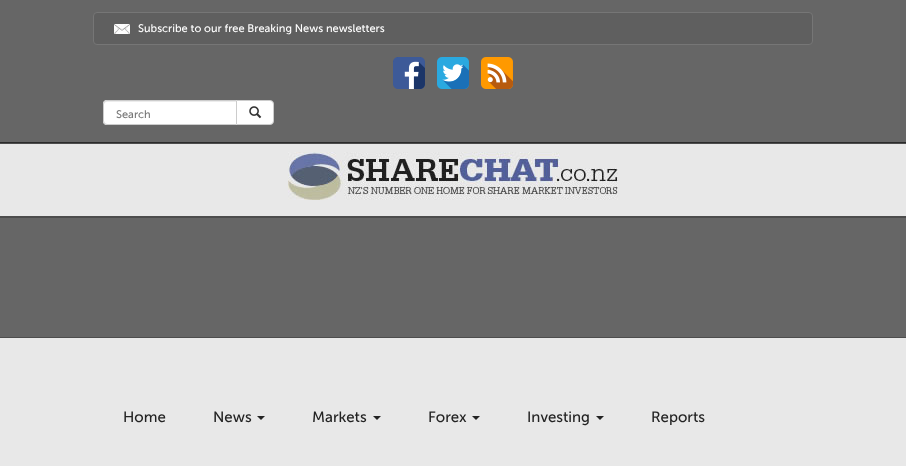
async function draw(canvas) {
	canvas.width = 906;
	canvas.height = 466;
	const c = canvas.getContext('2d');
	c.miterLimit = 4;
	c.fontKerning = 'normal';
	async function loadImage(src) {
		const img = new Image();
		img.src = src;
		await img.decode();
		return img;
	}

	c.fillStyle = '#666';
	c.fillRect(0, 0, 906, 466);
	c.fillStyle = '#2b2b2b';
	c.fillRect(0, 142, 906, 1);
	c.fillStyle = '#5f5f5f';
	c.beginPath();
	c.roundRect(93.5, 12.5, 719, 32, 3.5);
	c.fill();
	c.strokeStyle = '#767676';
	c.stroke();
	c.drawImage(await loadImage('img1.png'), 114, 24, 16, 10);
	c.font = '11px Museo Sans';
	c.fillStyle = '#fff';
	c.fillText('Subscribe to our free Breaking News newsletters', 138, 32);
	c.drawImage(await loadImage('img2.png'), 393, 57, 32, 32);
	c.drawImage(await loadImage('img3.png'), 437, 57, 32, 32);
	c.drawImage(await loadImage('img4.png'), 481, 57, 32, 32);
	c.beginPath();
	c.roundRect(236.5, 100.5, 37, 24, [0, 3.5, 3.5, 0]);
	c.fill();
	c.strokeStyle = '#ccc';
	c.stroke();
	c.beginPath();
	c.roundRect(103, 100, 134, 25, [4, 0, 0, 4]);
	c.fill();
	c.fillStyle = '#ececec';
	c.beginPath();
	c.moveTo(107, 102);
	c.lineTo(236, 102);
	c.lineTo(236, 101);
	c.lineTo(107, 101);
	c.bezierCurveTo(105, 101, 104, 103, 104, 105);
	c.bezierCurveTo(104, 103, 105, 102, 107, 102);
	c.closePath();
	c.fill();
	c.beginPath();
	c.roundRect(103.5, 100.5, 133, 24, [3.5, 0, 0, 3.5]);
	c.stroke();
	c.fillStyle = '#777';
	c.fillText('Search', 116, 118);
	c.drawImage(await loadImage('img5.png'), 249, 106, 13, 13);
	for (const [x, y, w, h, color] of [
		[0, 144, 906, 72, '#e8e8e8'],
		[0, 143, 906, 1, '#4d4d4d'],
		[0, 216, 906, 2, '#4d4d4d'],
	]) {
		c.fillStyle = color;
		c.fillRect(x, y, w, h);
	}
	c.drawImage(await loadImage('img6.png'), 288, 152, 330, 48);
	c.fillRect(0, 337, 906, 1);
	c.fillStyle = '#e8e8e8';
	c.fillRect(0, 338, 906, 128);
	c.font = '15px Museo Sans';
	c.fillStyle = '#232323';
	c.fillText('Home', 123, 422);
	c.fillText('News', 213, 422);
	c.beginPath();
	c.moveTo(257, 416);
	c.lineTo(265, 416);
	c.lineTo(261, 420);
	c.closePath();
	c.fill();
	c.fillText('Markets', 312, 422);
	c.beginPath();
	c.moveTo(373, 416);
	c.lineTo(381, 416);
	c.lineTo(377, 420);
	c.closePath();
	c.fill();
	c.fillText('Forex', 428, 422);
	c.beginPath();
	c.moveTo(472, 416);
	c.lineTo(480, 416);
	c.lineTo(476, 420);
	c.closePath();
	c.fill();
	c.fillText('Investing', 527, 422);
	c.beginPath();
	c.moveTo(596, 416);
	c.lineTo(604, 416);
	c.lineTo(600, 420);
	c.closePath();
	c.fill();
	c.fillText('Reports', 651, 422);
}

draw(document.querySelector('canvas'));
